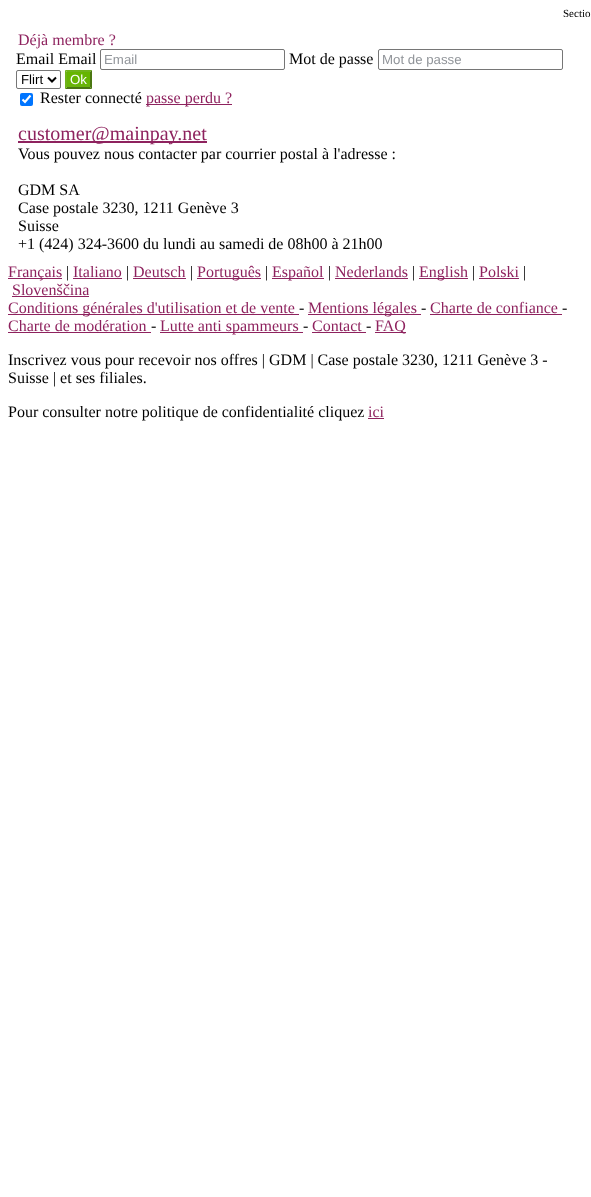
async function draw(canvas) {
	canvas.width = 591;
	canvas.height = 1197;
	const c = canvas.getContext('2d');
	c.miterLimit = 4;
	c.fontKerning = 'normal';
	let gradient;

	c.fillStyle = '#fff';
	c.fillRect(0, 0, 591, 1197);
	c.font = '11px Liberation Serif';
	c.fillStyle = '#000';
	c.fillText('Sectio', 563, 17);
	c.beginPath();
	c.roundRect(16.5, 70.5, 44, 18, 1.5);
	c.strokeStyle = '#767676';
	c.stroke();
	c.beginPath();
	c.moveTo(48, 77.5);
	c.lineTo(52, 81.5);
	c.lineTo(56, 77.5);
	c.strokeStyle = '#000';
	c.lineWidth = 2;
	c.stroke();
	c.font = '13.25px Liberation Sans';
	c.fillText('Flirt', 21, 84);
	c.font = '16px Liberation Serif';
	c.fillText('Email Email', 16, 64);
	c.beginPath();
	c.roundRect(100.5, 49.5, 184, 20, 1.5);
	c.strokeStyle = '#767676';
	c.lineWidth = 1;
	c.stroke();
	c.font = '13.25px Liberation Sans';
	c.fillStyle = '#909499';
	c.fillText('Email', 104, 64);
	c.font = '16px Liberation Serif';
	c.fillStyle = '#000';
	c.fillText('Mot de passe', 289, 64);
	c.beginPath();
	c.roundRect(378.5, 49.5, 184, 20, 1.5);
	c.stroke();
	c.font = '13.25px Liberation Sans';
	c.fillStyle = '#909499';
	c.fillText('Mot de passe', 382, 64);
	gradient = c.createLinearGradient(79, 72, 79, 87);
	gradient.addColorStop(0.4, '#66b500');
	gradient.addColorStop(1, '#6ab40c');
	c.fillStyle = gradient;
	c.fillRect(67, 72, 23, 15);
	c.fillStyle = '#6fb319';
	c.beginPath();
	c.moveTo(65, 70);
	c.lineTo(92, 70);
	c.lineTo(90, 72);
	c.lineTo(67, 72);
	c.closePath();
	c.fill();
	c.fillStyle = '#4a7711';
	c.beginPath();
	c.moveTo(92, 70);
	c.lineTo(92, 89);
	c.lineTo(90, 87);
	c.lineTo(90, 72);
	c.closePath();
	c.fill();
	c.beginPath();
	c.moveTo(92, 89);
	c.lineTo(65, 89);
	c.lineTo(67, 87);
	c.lineTo(90, 87);
	c.closePath();
	c.fill();
	c.fillStyle = '#6fb319';
	c.beginPath();
	c.moveTo(65, 89);
	c.lineTo(65, 70);
	c.lineTo(67, 72);
	c.lineTo(67, 87);
	c.closePath();
	c.fill();
	c.fillStyle = '#fff';
	c.fillText('Ok', 70, 84);
	c.font = '16px Liberation Serif';
	c.fillStyle = '#8e225e';
	c.fillText('Déjà membre ?', 18, 45);
	c.fillStyle = '#0075ff';
	c.beginPath();
	c.roundRect(20, 93, 13, 13, 2);
	c.fill();
	c.beginPath();
	c.moveTo(22.5, 99.5);
	c.lineTo(25, 102);
	c.lineTo(30.5, 95.5);
	c.strokeStyle = '#fff';
	c.lineWidth = 2.1;
	c.stroke();
	c.fillStyle = '#000';
	c.fillText('Rester connecté', 40, 103);
	c.fillStyle = '#8e225e';
	c.fillRect(146, 104, 86, 1);
	c.fillText('passe perdu ?', 146, 103);
	c.fillRect(18, 141, 189, 2);
	c.font = '20px Liberation Serif';
	c.fillText('customer@mainpay.net', 18, 140);
	c.font = '16px Liberation Serif';
	c.fillStyle = '#000';
	for (const [text, x, y] of [
		['Vous pouvez nous contacter par courrier postal à l\'adresse :', 18, 159],
		['GDM SA', 18, 195],
		['Case postale 3230, 1211 Genève 3', 18, 213],
		['Suisse', 18, 231],
		['+1 (424) 324-3600 du lundi au samedi de 08h00 à 21h00', 18, 249],
	]) {
		c.fillText(text, x, y);
	}
	c.fillStyle = '#8e225e';
	c.fillRect(8, 278, 54, 1);
	c.fillText('Français', 8, 277);
	c.fillStyle = '#000';
	c.fillText('|', 66, 277);
	c.fillStyle = '#8e225e';
	c.fillText('Italiano', 73, 277);
	c.fillRect(73, 278, 49, 1);
	c.fillStyle = '#000';
	c.fillText('|', 126, 277);
	c.fillStyle = '#8e225e';
	c.fillText('Deutsch', 133, 277);
	c.fillRect(133, 278, 53, 1);
	c.fillStyle = '#000';
	c.fillText('|', 190, 277);
	c.fillStyle = '#8e225e';
	c.fillRect(197, 278, 64, 1);
	c.fillText('Português', 197, 277);
	c.fillStyle = '#000';
	c.fillText('|', 265, 277);
	c.fillStyle = '#8e225e';
	c.fillRect(272, 278, 52, 1);
	c.fillText('Español', 272, 277);
	c.fillStyle = '#000';
	c.fillText('|', 328, 277);
	c.fillStyle = '#8e225e';
	c.fillText('Nederlands', 335, 277);
	c.fillRect(335, 278, 73, 1);
	c.fillStyle = '#000';
	c.fillText('|', 412, 277);
	c.fillStyle = '#8e225e';
	c.fillRect(419, 278, 49, 1);
	c.fillText('English', 419, 277);
	c.fillStyle = '#000';
	c.fillText('|', 472, 277);
	c.fillStyle = '#8e225e';
	c.fillText('Polski', 479, 277);
	c.fillRect(479, 278, 40, 1);
	c.fillStyle = '#000';
	c.fillText('|', 523, 277);
	c.fillStyle = '#8e225e';
	c.fillText('Slovenščina', 12, 295);
	c.fillRect(12, 296, 77, 1);
	c.fillRect(8, 314, 291, 1);
	c.fillText('Conditions générales d\'utilisation et de vente', 8, 313);
	c.fillStyle = '#000';
	c.fillText('-', 299, 313);
	c.fillStyle = '#8e225e';
	c.fillRect(308, 314, 113, 1);
	c.fillText('Mentions légales', 308, 313);
	c.fillStyle = '#000';
	c.fillText('-', 421, 313);
	c.fillStyle = '#8e225e';
	c.fillText('Charte de confiance', 430, 313);
	c.fillRect(430, 314, 132, 1);
	c.fillStyle = '#000';
	c.fillText('-', 562, 313);
	c.fillStyle = '#8e225e';
	c.fillText('Charte de modération', 8, 331);
	c.fillRect(8, 332, 143, 1);
	c.fillStyle = '#000';
	c.fillText('-', 151, 331);
	c.fillStyle = '#8e225e';
	c.fillRect(160, 332, 143, 1);
	c.fillText('Lutte anti spammeurs', 160, 331);
	c.fillStyle = '#000';
	c.fillText('-', 303, 331);
	c.fillStyle = '#8e225e';
	c.fillText('Contact', 312, 331);
	c.fillRect(312, 332, 54, 1);
	c.fillStyle = '#000';
	c.fillText('-', 366, 331);
	c.fillStyle = '#8e225e';
	c.fillRect(375, 332, 31, 1);
	c.fillText('FAQ', 375, 331);
	c.fillStyle = '#000';
	for (const [text, x, y] of [
		['Inscrivez vous pour recevoir nos offres | GDM | Case postale 3230, 1211 Genève 3 -', 8, 365],
		['Suisse | et ses filiales.', 8, 383],
		['Pour consulter notre politique de confidentialité cliquez', 8, 417],
	]) {
		c.fillText(text, x, y);
	}
	c.fillStyle = '#8e225e';
	c.fillText('ici', 368, 417);
	c.fillRect(368, 418, 16, 1);
}

draw(document.querySelector('canvas'));
